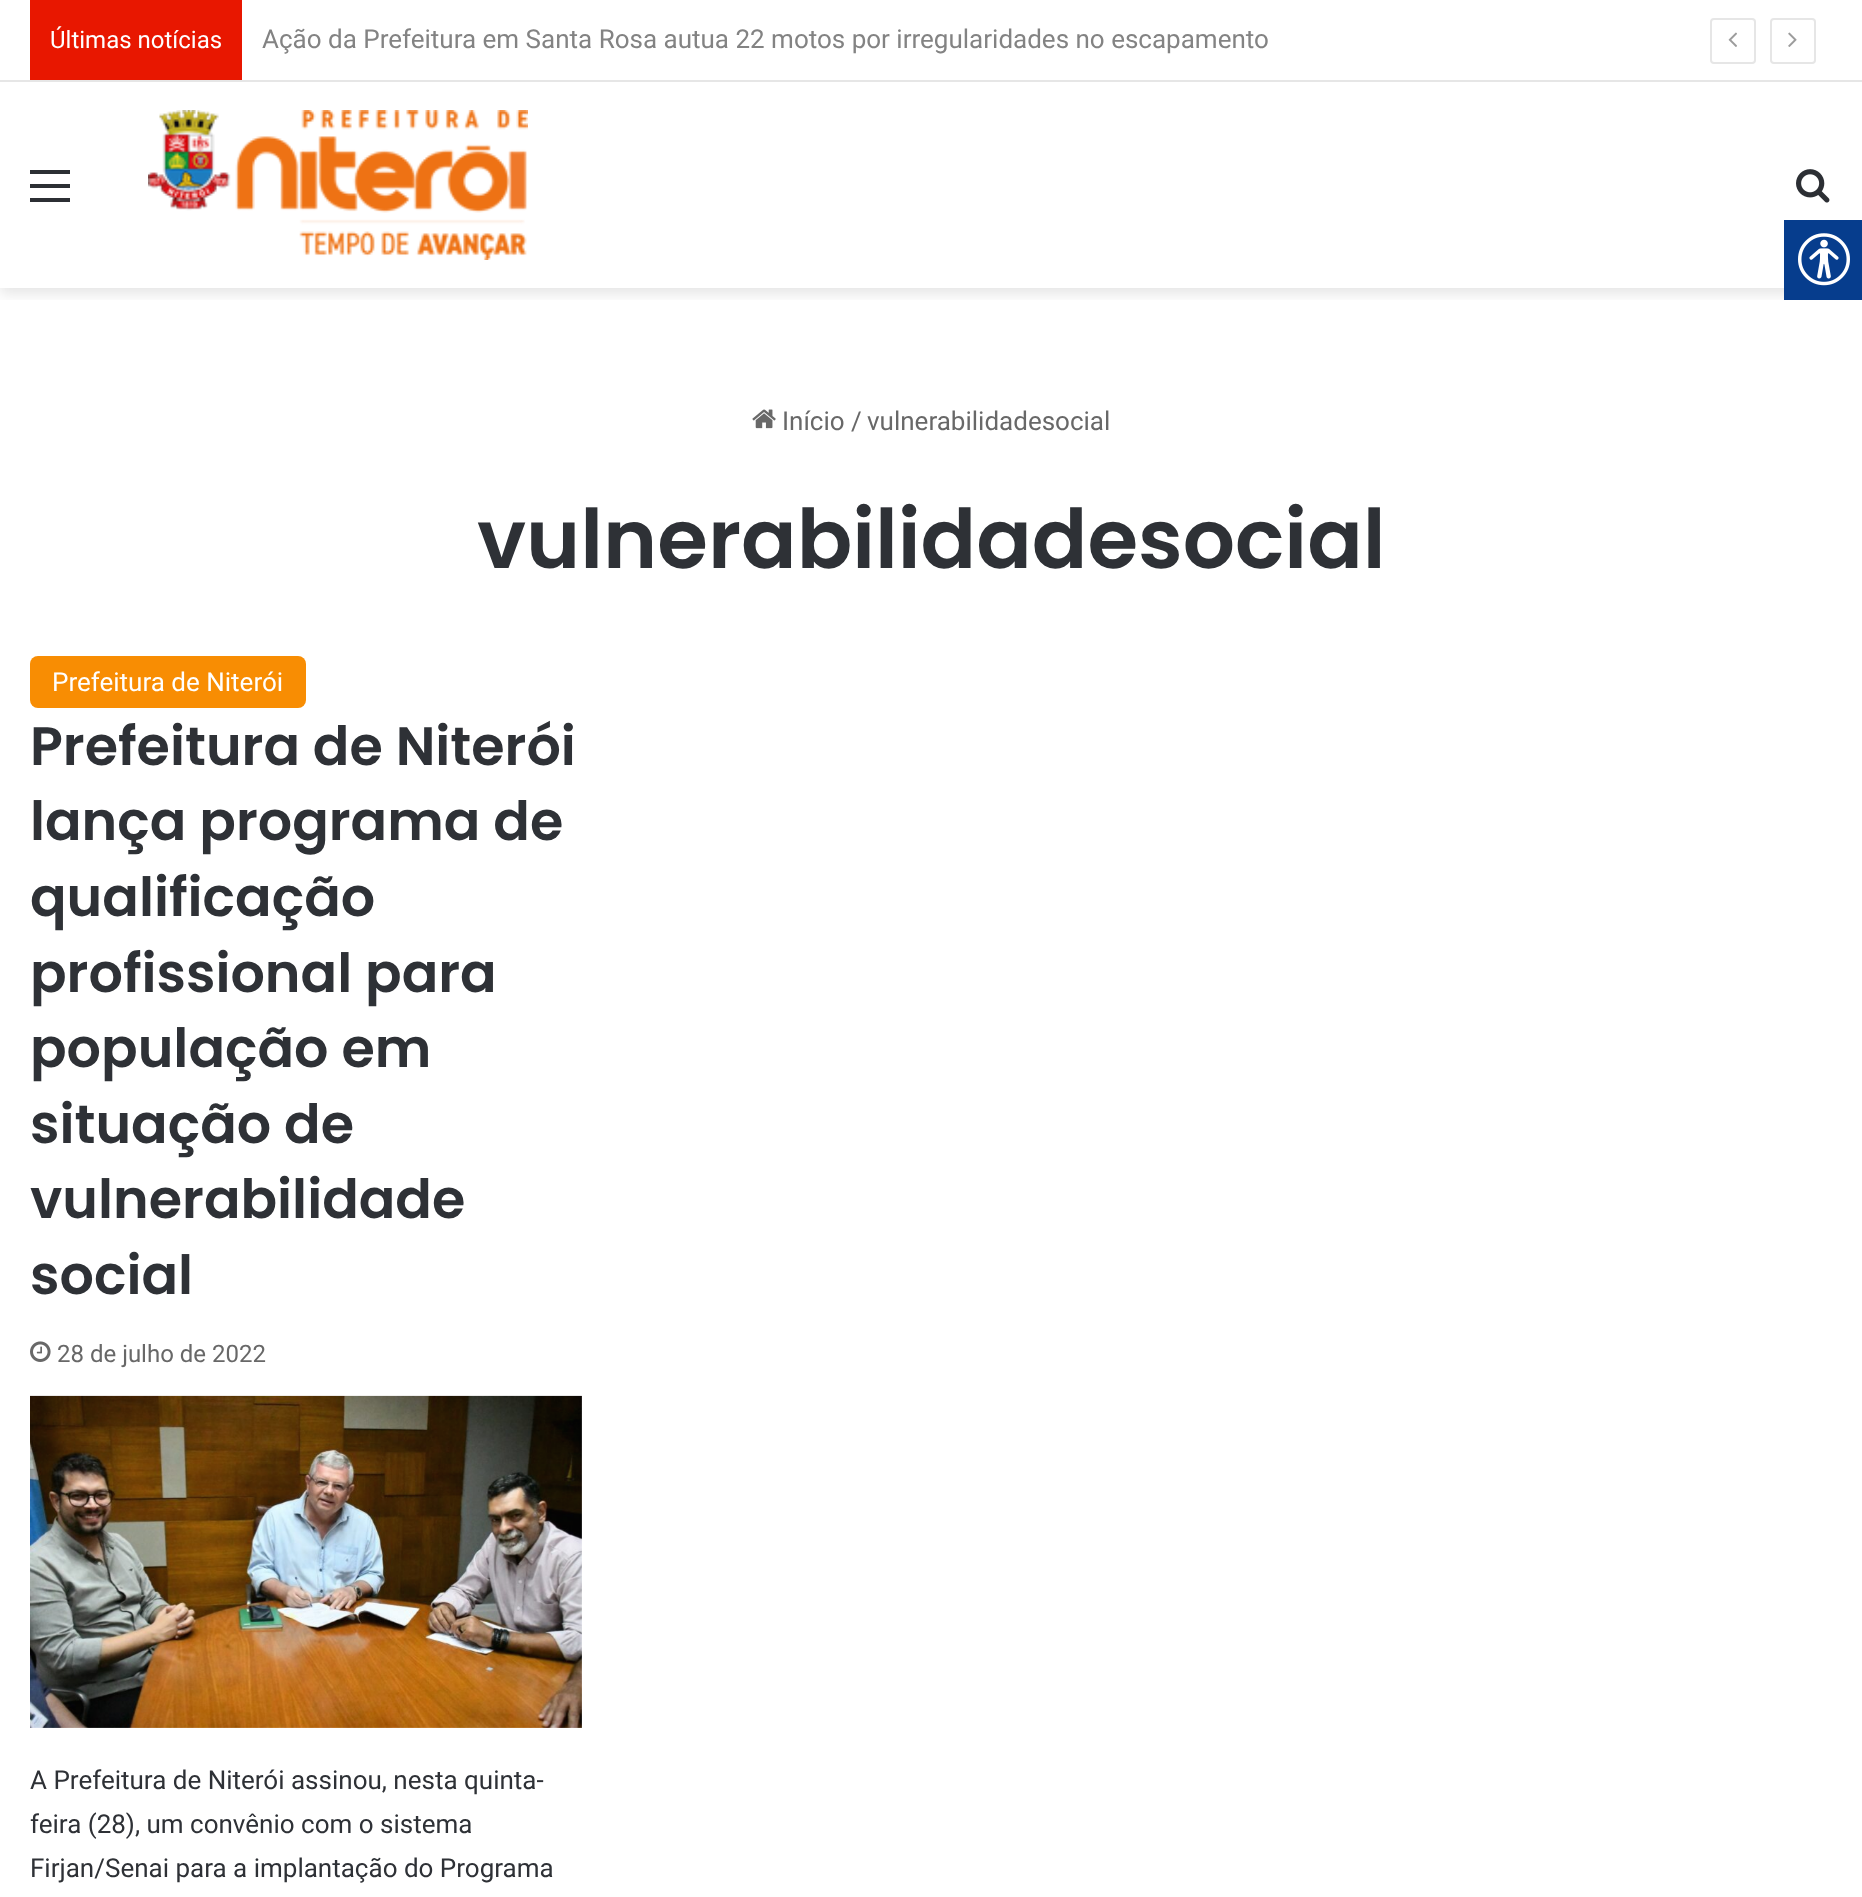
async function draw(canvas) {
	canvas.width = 1862;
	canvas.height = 1897;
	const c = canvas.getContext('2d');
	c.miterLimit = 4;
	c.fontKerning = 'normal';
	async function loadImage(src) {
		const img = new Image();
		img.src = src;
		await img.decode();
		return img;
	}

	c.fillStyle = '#fff';
	c.fillRect(0, 0, 1862, 1897);
	c.save();
	c.beginPath();
	c.rect(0, 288, 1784, 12);
	c.clip();
	c.fillStyle = '#0000001a';
	c.filter = 'blur(7px)';
	c.beginPath();
	c.rect(0, 88, 1862, 206);
	c.fill();
	c.filter = 'none';
	c.restore();
	for (const [x, y, w, h, color] of [
		[9, 79, 1844, 1, '#fff'],
		[0, 80, 1862, 2, '#e6e6e6'],
		[30, 0, 212, 80, '#e81700'],
	]) {
		c.fillStyle = color;
		c.fillRect(x, y, w, h);
	}
	c.font = '24px Roboto';
	c.fillStyle = '#fff';
	c.fillText('Últimas notícias', 50, 48);
	c.font = '26px Roboto';
	c.fillStyle = '#838383';
	c.fillText('Ação da Prefeitura em Santa Rosa autua 22 motos por irregularidades no escapamento', 262, 48);
	c.beginPath();
	c.roundRect(1711, 19, 44, 44, 3);
	c.strokeStyle = '#e6e6e6';
	c.lineWidth = 2;
	c.stroke();
	c.drawImage(await loadImage('img1.png'), 1728, 32, 9, 15);
	c.beginPath();
	c.roundRect(1771, 19, 44, 44, 3);
	c.stroke();
	c.drawImage(await loadImage('img2.png'), 1788, 32, 9, 15);
	for (const [x, y, w, h, color] of [
		[30, 184, 40, 4, '#2c2f34'],
		[30, 170, 40, 4, '#2c2f34'],
		[30, 198, 40, 4, '#2c2f34'],
	]) {
		c.fillStyle = color;
		c.fillRect(x, y, w, h);
	}
	c.drawImage(await loadImage('img3.png'), 148, 110, 380, 150);
	c.drawImage(await loadImage('img4.png'), 1796, 169, 34, 34);
	c.drawImage(await loadImage('img5.png'), 752, 409, 24, 20);
	c.fillStyle = '#686868';
	for (const [text, x, y] of [
		['Início', 782, 430],
		['/', 851, 430],
		['vulnerabilidadesocial', 867, 430],
	]) {
		c.fillText(text, x, y);
	}
	c.font = '600 82px Poppins';
	c.fillStyle = '#2e3136';
	c.fillText('vulnerabilidadesocial', 477, 568);
	c.fillStyle = '#f88d03';
	c.beginPath();
	c.roundRect(30, 656, 276, 52, 8);
	c.fill();
	c.font = '26px Roboto';
	c.fillStyle = '#fff';
	c.fillText('Prefeitura de Niterói', 52, 691);
	c.font = '600 54px Poppins';
	c.fillStyle = '#2e3136';
	for (const [text, x, y] of [
		['Prefeitura de Niterói', 30, 765],
		['lança programa de', 30, 840],
		['qualificação', 30, 916],
		['profissional para', 30, 992],
		['população em', 30, 1067],
		['situação de', 30, 1143],
		['vulnerabilidade', 30, 1218],
		['social', 30, 1294],
	]) {
		c.fillText(text, x, y);
	}
	c.drawImage(await loadImage('img6.png'), 30, 1341, 21, 21);
	c.font = '24px Roboto';
	c.fillStyle = '#686868';
	c.fillText('28 de julho de 2022', 57, 1362);
	c.drawImage(await loadImage('img7.png'), 30, 1395, 552, 333);
	c.font = '26px Roboto';
	c.fillStyle = '#2e3136';
	for (const [text, x, y] of [
		['A Prefeitura de Niterói assinou, nesta quinta-', 30, 1789],
		['feira (28), um convênio com o sistema', 30, 1833],
		['Firjan/Senai para a implantação do Programa', 30, 1877],
	]) {
		c.fillText(text, x, y);
	}
	c.fillStyle = '#063d8d';
	c.fillRect(1784, 220, 78, 80);
	c.drawImage(await loadImage('img8.png'), 1798, 233, 52, 53);
}

draw(document.querySelector('canvas'));
